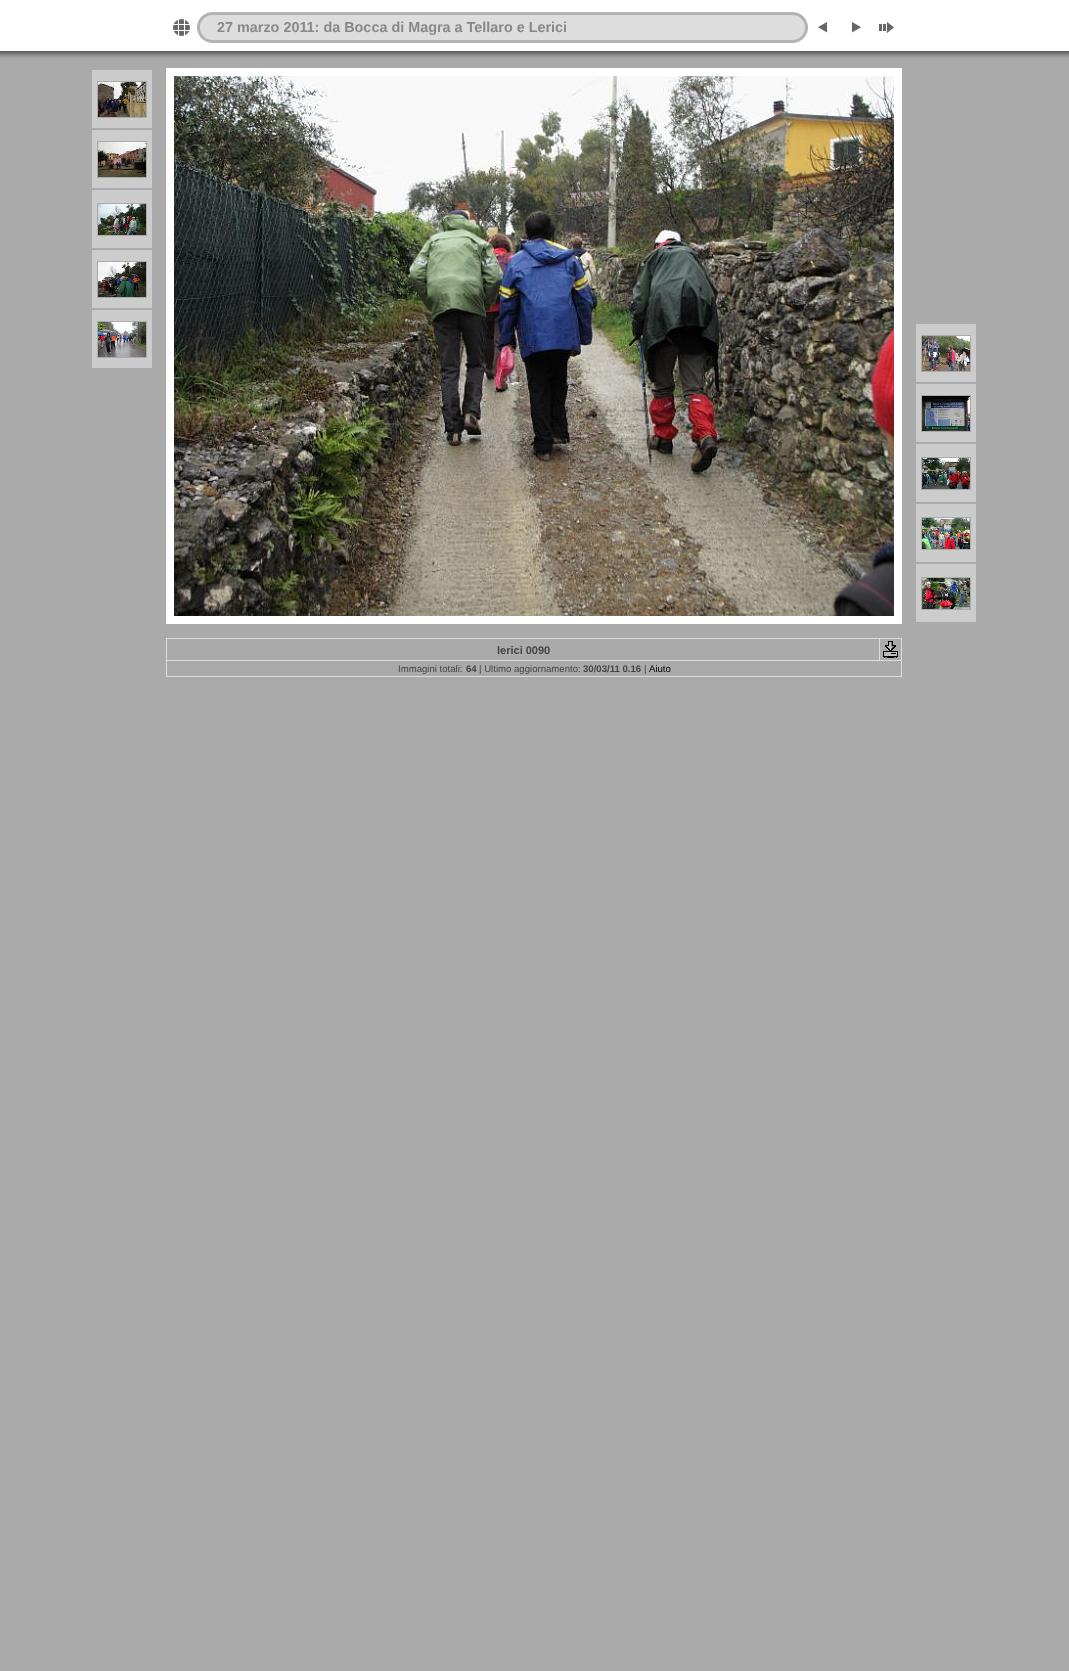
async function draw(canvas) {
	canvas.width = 1069;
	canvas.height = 1671;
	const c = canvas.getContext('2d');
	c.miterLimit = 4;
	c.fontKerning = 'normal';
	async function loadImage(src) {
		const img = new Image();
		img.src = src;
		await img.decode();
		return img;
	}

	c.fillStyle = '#aaa';
	c.fillRect(0, 0, 1069, 1671);
	c.drawImage(await loadImage('img1.png'), 0, 0, 1069, 58);
	c.drawImage(await loadImage('img2.png'), 173, 19, 17, 17);
	c.drawImage(await loadImage('img3.png'), 197, 12, 20, 31);
	c.drawImage(await loadImage('img4.png'), 217, 12, 572, 31);
	c.font = 'bold 14.4px Liberation Sans';
	c.fillStyle = '#888';
	c.fillText('27 marzo 2011: da Bocca di Magra a Tellaro e Lerici', 217, 32);
	c.drawImage(await loadImage('img5.png'), 789, 12, 19, 31);
	c.drawImage(await loadImage('img6.png'), 818, 22, 10, 11);
	c.drawImage(await loadImage('img7.png'), 851, 22, 10, 11);
	c.drawImage(await loadImage('img8.png'), 879, 22, 15, 11);
	c.fillStyle = '#ccc';
	c.fillRect(92, 70, 60, 58);
	c.strokeStyle = '#aaa';
	c.strokeRect(97.5, 81.5, 49, 36);
	c.drawImage(await loadImage('img9.png'), 98, 82, 48, 35);
	c.fillRect(92, 130, 60, 58);
	c.strokeRect(97.5, 141.5, 49, 36);
	c.drawImage(await loadImage('img10.png'), 98, 142, 48, 35);
	c.fillRect(92, 190, 60, 58);
	c.strokeRect(97.5, 203.5, 49, 32);
	c.drawImage(await loadImage('img11.png'), 98, 204, 48, 31);
	c.fillRect(92, 250, 60, 58);
	c.strokeRect(97.5, 261.5, 49, 36);
	c.drawImage(await loadImage('img12.png'), 98, 262, 48, 35);
	c.fillRect(92, 310, 60, 58);
	c.strokeRect(97.5, 321.5, 49, 36);
	c.drawImage(await loadImage('img13.png'), 98, 322, 48, 35);
	c.strokeStyle = '#fff';
	c.lineWidth = 8;
	c.strokeRect(170, 72, 728, 548);
	c.drawImage(await loadImage('img14.png'), 174, 76, 720, 540);
	c.fillRect(916, 324, 60, 58);
	c.strokeStyle = '#aaa';
	c.lineWidth = 1;
	c.strokeRect(921.5, 335.5, 49, 36);
	c.drawImage(await loadImage('img15.png'), 922, 336, 48, 35);
	c.fillRect(916, 384, 60, 58);
	c.strokeRect(921.5, 395.5, 49, 36);
	c.drawImage(await loadImage('img16.png'), 922, 396, 48, 35);
	c.fillRect(916, 444, 60, 58);
	c.strokeRect(921.5, 457.5, 49, 32);
	c.drawImage(await loadImage('img17.png'), 922, 458, 48, 31);
	c.fillRect(916, 504, 60, 58);
	c.strokeRect(921.5, 517.5, 49, 32);
	c.drawImage(await loadImage('img18.png'), 922, 518, 48, 31);
	c.fillRect(916, 564, 60, 58);
	c.strokeRect(921.5, 577.5, 49, 32);
	c.drawImage(await loadImage('img19.png'), 922, 578, 48, 31);
	for (const [x, y, w, h, color] of [
		[166, 638, 736, 1, '#ddd'],
		[901, 638, 1, 39, '#ddd'],
		[166, 676, 736, 1, '#ddd'],
		[166, 638, 1, 39, '#ddd'],
	]) {
		c.fillStyle = color;
		c.fillRect(x, y, w, h);
	}
	c.font = 'bold 11px Liberation Sans';
	c.fillStyle = '#444';
	c.fillText('lerici 0090', 497, 654);
	c.fillStyle = '#ddd';
	c.fillRect(166, 660, 736, 1);
	c.fillRect(879, 638, 1, 23);
	c.drawImage(await loadImage('img20.png'), 883, 641, 15, 17);
	c.font = '9.6px Liberation Sans';
	c.fillStyle = '#444';
	c.fillText('Immagini totali:', 398, 672);
	c.font = 'bold 9.6px Liberation Sans';
	c.fillText('64', 466, 672);
	c.font = '9.6px Liberation Sans';
	c.fillText('| Ultimo aggiornamento:', 479, 672);
	c.font = 'bold 9.6px Liberation Sans';
	c.fillText('30/03/11 0.16', 583, 672);
	c.font = '9.6px Liberation Sans';
	c.fillText('|', 644, 672);
	c.fillStyle = '#000';
	c.fillText('Aiuto', 649, 672);
}

draw(document.querySelector('canvas'));
